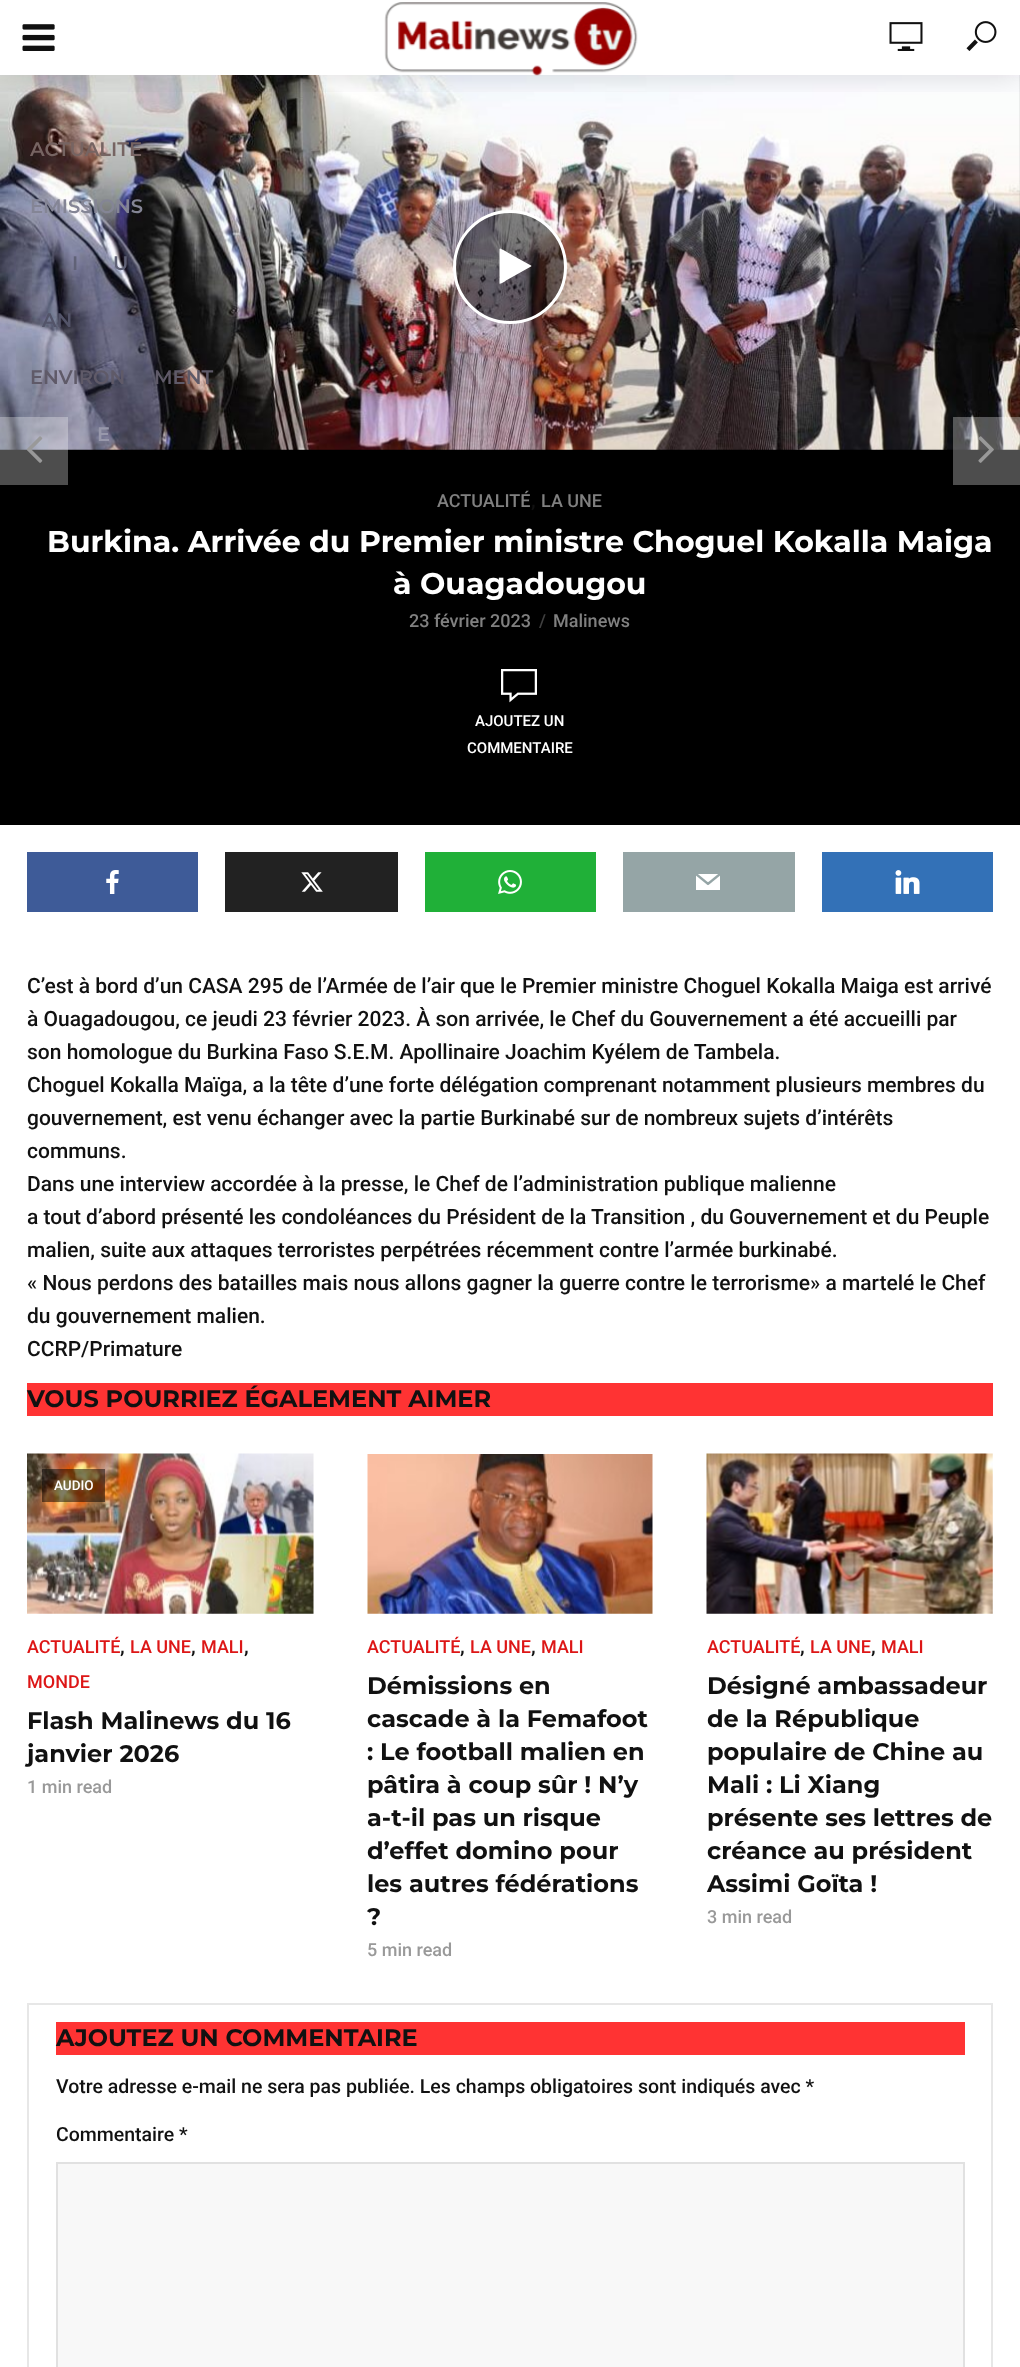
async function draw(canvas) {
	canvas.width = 1020;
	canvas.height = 2367;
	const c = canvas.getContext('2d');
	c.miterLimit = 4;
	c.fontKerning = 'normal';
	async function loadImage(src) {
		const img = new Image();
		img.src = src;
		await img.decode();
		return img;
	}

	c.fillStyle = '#fff';
	c.fillRect(0, 0, 1020, 2367);
	c.fillStyle = '#000';
	c.fillRect(0, 75, 1020, 750);
	c.drawImage(await loadImage('img5.png'), 0, 75, 1020, 375);
	c.save();
	c.beginPath();
	c.rect(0, 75, 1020, 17);
	c.clip();
	c.fillStyle = '#00000026';
	c.filter = 'blur(15px)';
	c.beginPath();
	c.rect(0, 0, 1020, 75);
	c.fill();
	c.filter = 'none';
	c.restore();
	c.drawImage(await loadImage('img1.png'), 384, 2, 254, 74);
	c.drawImage(await loadImage('img2.png'), 889, 22, 34, 29);
	c.drawImage(await loadImage('img3.png'), 966, 21, 31, 30);
	c.drawImage(await loadImage('img4.png'), 22, 24, 33, 27);
	c.font = '600 19.5px Montserrat';
	c.fillStyle = '#766462';
	c.fillText('ACTUALITÉ', 30, 156);
	c.fillStyle = '#848595';
	c.fillText('EMISSIONS', 30, 213);
	c.fillStyle = '#606276';
	c.fillText('I', 72, 270);
	c.fillText('U', 113, 270);
	c.fillStyle = '#535469';
	c.fillText('AN', 42, 327);
	c.fillStyle = '#5f5a68';
	c.fillText('ENVIRON', 30, 384);
	c.fillText('MENT', 154, 384);
	c.fillStyle = '#9898ab';
	c.fillText('E', 97, 441);
	c.fillStyle = '#00000080';
	c.beginPath();
	c.arc(510, 267, 55.5, 0, 2 * Math.PI);
	c.fill();
	c.strokeStyle = '#fff';
	c.lineWidth = 3;
	c.stroke();
	c.fillStyle = '#fff';
	c.beginPath();
	c.moveTo(531, 266.5);
	c.lineTo(506, 280.5);
	c.bezierCurveTo(505.5, 281, 500.5, 284.5, 499.5, 283.5);
	c.lineTo(499.5, 249);
	c.lineTo(500, 248.5);
	c.bezierCurveTo(501, 248.5, 518.5, 258.5, 521, 260);
	c.lineTo(531, 265.5);
	c.lineTo(531.5, 266);
	c.closePath();
	c.fill();
	c.fillStyle = '#ffffff4d';
	c.fillRect(0, 417, 68, 68);
	c.drawImage(await loadImage('img6.png'), 27, 436, 16, 27);
	c.fillRect(953, 417, 67, 68);
	c.drawImage(await loadImage('img7.png'), 978, 436, 16, 27);
	c.font = '500 18px Roboto';
	c.fillStyle = '#808080';
	c.fillText('ACTUALITÉ', 437, 507);
	c.font = '500 21px Roboto';
	c.fillStyle = '#111';
	c.fillText(',', 531, 507);
	c.font = '500 18px Roboto';
	c.fillStyle = '#808080';
	c.fillText('LA UNE', 541, 507);
	c.font = 'bold 30px Montserrat';
	c.fillStyle = '#fff';
	c.fillText('Burkina. Arrivée du Premier ministre Choguel Kokalla Maiga', 47, 552);
	c.fillText('à Ouagadougou', 393, 594);
	c.font = '500 18px Roboto';
	c.fillStyle = '#808080';
	c.fillText('23 février 2023', 409, 627);
	c.fillStyle = '#404040';
	c.fillText('/', 539, 627);
	c.fillStyle = '#808080';
	c.fillText('Malinews', 553, 627);
	c.drawImage(await loadImage('img8.png'), 501, 669, 36, 34);
	c.font = '500 15px Roboto';
	c.fillStyle = '#fff';
	c.fillText('AJOUTEZ UN', 475, 726);
	c.fillText('COMMENTAIRE', 467, 753);
	c.fillStyle = '#3e5b98';
	c.fillRect(27, 852, 171, 60);
	c.drawImage(await loadImage('img9.png'), 106, 870, 13, 24);
	c.fillStyle = '#222';
	c.fillRect(225, 852, 173, 60);
	c.drawImage(await loadImage('img10.png'), 301, 872, 22, 20);
	c.fillStyle = '#20b038';
	c.fillRect(425, 852, 171, 60);
	c.drawImage(await loadImage('img11.png'), 498, 870, 24, 24);
	c.fillStyle = '#95a5a6';
	c.fillRect(623, 852, 172, 60);
	c.drawImage(await loadImage('img12.png'), 696, 874, 24, 16);
	c.fillStyle = '#3371b7';
	c.fillRect(822, 852, 171, 60);
	c.drawImage(await loadImage('img13.png'), 895, 870, 25, 24);
	c.font = '500 21px Roboto';
	c.fillStyle = '#111';
	for (const [text, x, y] of [
		['C’est à bord d’un CASA 295 de l’Armée de l’air que le Premier ministre Choguel Kokalla Maiga est arrivé', 27, 993],
		['à Ouagadougou, ce jeudi 23 février 2023. À son arrivée, le Chef du Gouvernement a été accueilli par', 27, 1026],
		['son homologue du Burkina Faso S.E.M. Apollinaire Joachim Kyélem de Tambela.', 27, 1059],
		['Choguel Kokalla Maïga, a la tête d’une forte délégation comprenant notamment plusieurs membres du', 27, 1092],
		['gouvernement, est venu échanger avec la partie Burkinabé sur de nombreux sujets d’intérêts', 27, 1125],
		['communs.', 27, 1158],
		['Dans une interview accordée à la presse, le Chef de l’administration publique malienne', 27, 1191],
		['a tout d’abord présenté les condoléances du Président de la Transition , du Gouvernement et du Peuple', 27, 1224],
		['malien, suite aux attaques terroristes perpétrées récemment contre l’armée burkinabé.', 27, 1257],
		['« Nous perdons des batailles mais nous allons gagner la guerre contre le terrorisme» a martelé le Chef', 27, 1290],
		['du gouvernement malien.', 27, 1323],
		['CCRP/Primature', 27, 1356],
	]) {
		c.fillText(text, x, y);
	}
	c.fillStyle = '#f33';
	c.fillRect(27, 1383, 966, 33);
	c.font = 'bold 24px Montserrat';
	c.fillStyle = '#111';
	c.fillText('VOUS POURRIEZ ÉGALEMENT AIMER', 27, 1407);
	c.drawImage(await loadImage('img14.png'), 27, 1453, 287, 161);
	c.fillStyle = '#00000080';
	c.fillRect(42, 1469, 63, 33);
	c.font = '500 13.5px Roboto';
	c.fillStyle = '#fff';
	c.fillText('AUDIO', 54, 1490);
	c.font = '500 18px Roboto';
	c.fillStyle = '#dd1616';
	c.fillText('ACTUALITÉ', 27, 1653);
	c.font = '500 21px Roboto';
	c.fillStyle = '#111';
	c.fillText(',', 120, 1653);
	c.font = '500 18px Roboto';
	c.fillStyle = '#dd1616';
	c.fillText('LA UNE', 130, 1653);
	c.font = '500 21px Roboto';
	c.fillStyle = '#111';
	c.fillText(',', 191, 1653);
	c.font = '500 18px Roboto';
	c.fillStyle = '#dd1616';
	c.fillText('MALI', 201, 1653);
	c.font = '500 21px Roboto';
	c.fillStyle = '#111';
	c.fillText(',', 244, 1653);
	c.font = '500 18px Roboto';
	c.fillStyle = '#dd1616';
	c.fillText('MONDE', 27, 1688);
	c.font = 'bold 24px Montserrat';
	c.fillStyle = '#111';
	c.fillText('Flash Malinews du 16', 27, 1729);
	c.fillText('janvier 2026', 27, 1762);
	c.font = '500 18px Roboto';
	c.fillStyle = '#999';
	c.fillText('1 min read', 27, 1793);
	c.drawImage(await loadImage('img15.png'), 367, 1454, 286, 160);
	c.fillStyle = '#dd1616';
	c.fillText('ACTUALITÉ', 367, 1653);
	c.font = '500 21px Roboto';
	c.fillStyle = '#111';
	c.fillText(',', 460, 1653);
	c.font = '500 18px Roboto';
	c.fillStyle = '#dd1616';
	c.fillText('LA UNE', 470, 1653);
	c.font = '500 21px Roboto';
	c.fillStyle = '#111';
	c.fillText(',', 531, 1653);
	c.font = '500 18px Roboto';
	c.fillStyle = '#dd1616';
	c.fillText('MALI', 541, 1653);
	c.font = 'bold 24px Montserrat';
	c.fillStyle = '#111';
	for (const [text, x, y] of [
		['Démissions en', 367, 1694],
		['cascade à la Femafoot', 367, 1727],
		[': Le football malien en', 367, 1760],
		['pâtira à coup sûr ! N’y', 367, 1793],
		['a-t-il pas un risque', 367, 1826],
		['d’effet domino pour', 367, 1859],
		['les autres fédérations', 367, 1892],
		['?', 367, 1925],
	]) {
		c.fillText(text, x, y);
	}
	c.font = '500 18px Roboto';
	c.fillStyle = '#999';
	c.fillText('5 min read', 367, 1956);
	c.drawImage(await loadImage('img16.png'), 706, 1453, 287, 161);
	c.fillStyle = '#dd1616';
	c.fillText('ACTUALITÉ', 707, 1653);
	c.font = '500 21px Roboto';
	c.fillStyle = '#111';
	c.fillText(',', 800, 1653);
	c.font = '500 18px Roboto';
	c.fillStyle = '#dd1616';
	c.fillText('LA UNE', 810, 1653);
	c.font = '500 21px Roboto';
	c.fillStyle = '#111';
	c.fillText(',', 871, 1653);
	c.font = '500 18px Roboto';
	c.fillStyle = '#dd1616';
	c.fillText('MALI', 881, 1653);
	c.font = 'bold 24px Montserrat';
	c.fillStyle = '#111';
	for (const [text, x, y] of [
		['Désigné ambassadeur', 707, 1694],
		['de la République', 707, 1727],
		['populaire de Chine au', 707, 1760],
		['Mali : Li Xiang', 707, 1793],
		['présente ses lettres de', 707, 1826],
		['créance au président', 707, 1859],
		['Assimi Goïta !', 707, 1892],
	]) {
		c.fillText(text, x, y);
	}
	c.font = '500 18px Roboto';
	c.fillStyle = '#999';
	c.fillText('3 min read', 707, 1923);
	c.strokeStyle = '#e7e7e7';
	c.lineWidth = 2;
	c.strokeRect(28, 2004, 964, 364);
	c.fillStyle = '#f33';
	c.fillRect(56, 2022, 909, 33);
	c.font = 'bold 24px Montserrat';
	c.fillStyle = '#111';
	c.fillText('AJOUTEZ UN COMMENTAIRE', 56, 2046);
	c.font = '500 19.5px Roboto';
	c.fillText('Votre adresse e-mail ne sera pas publiée. Les champs obligatoires sont indiqués avec *', 56, 2093);
	c.fillText('Commentaire *', 56, 2141);
	c.fillStyle = '#f8f8f8';
	c.beginPath();
	c.rect(57, 2163, 907, 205);
	c.fill();
	c.strokeStyle = '#e1e1e1';
	c.stroke();
}

draw(document.querySelector('canvas'));
